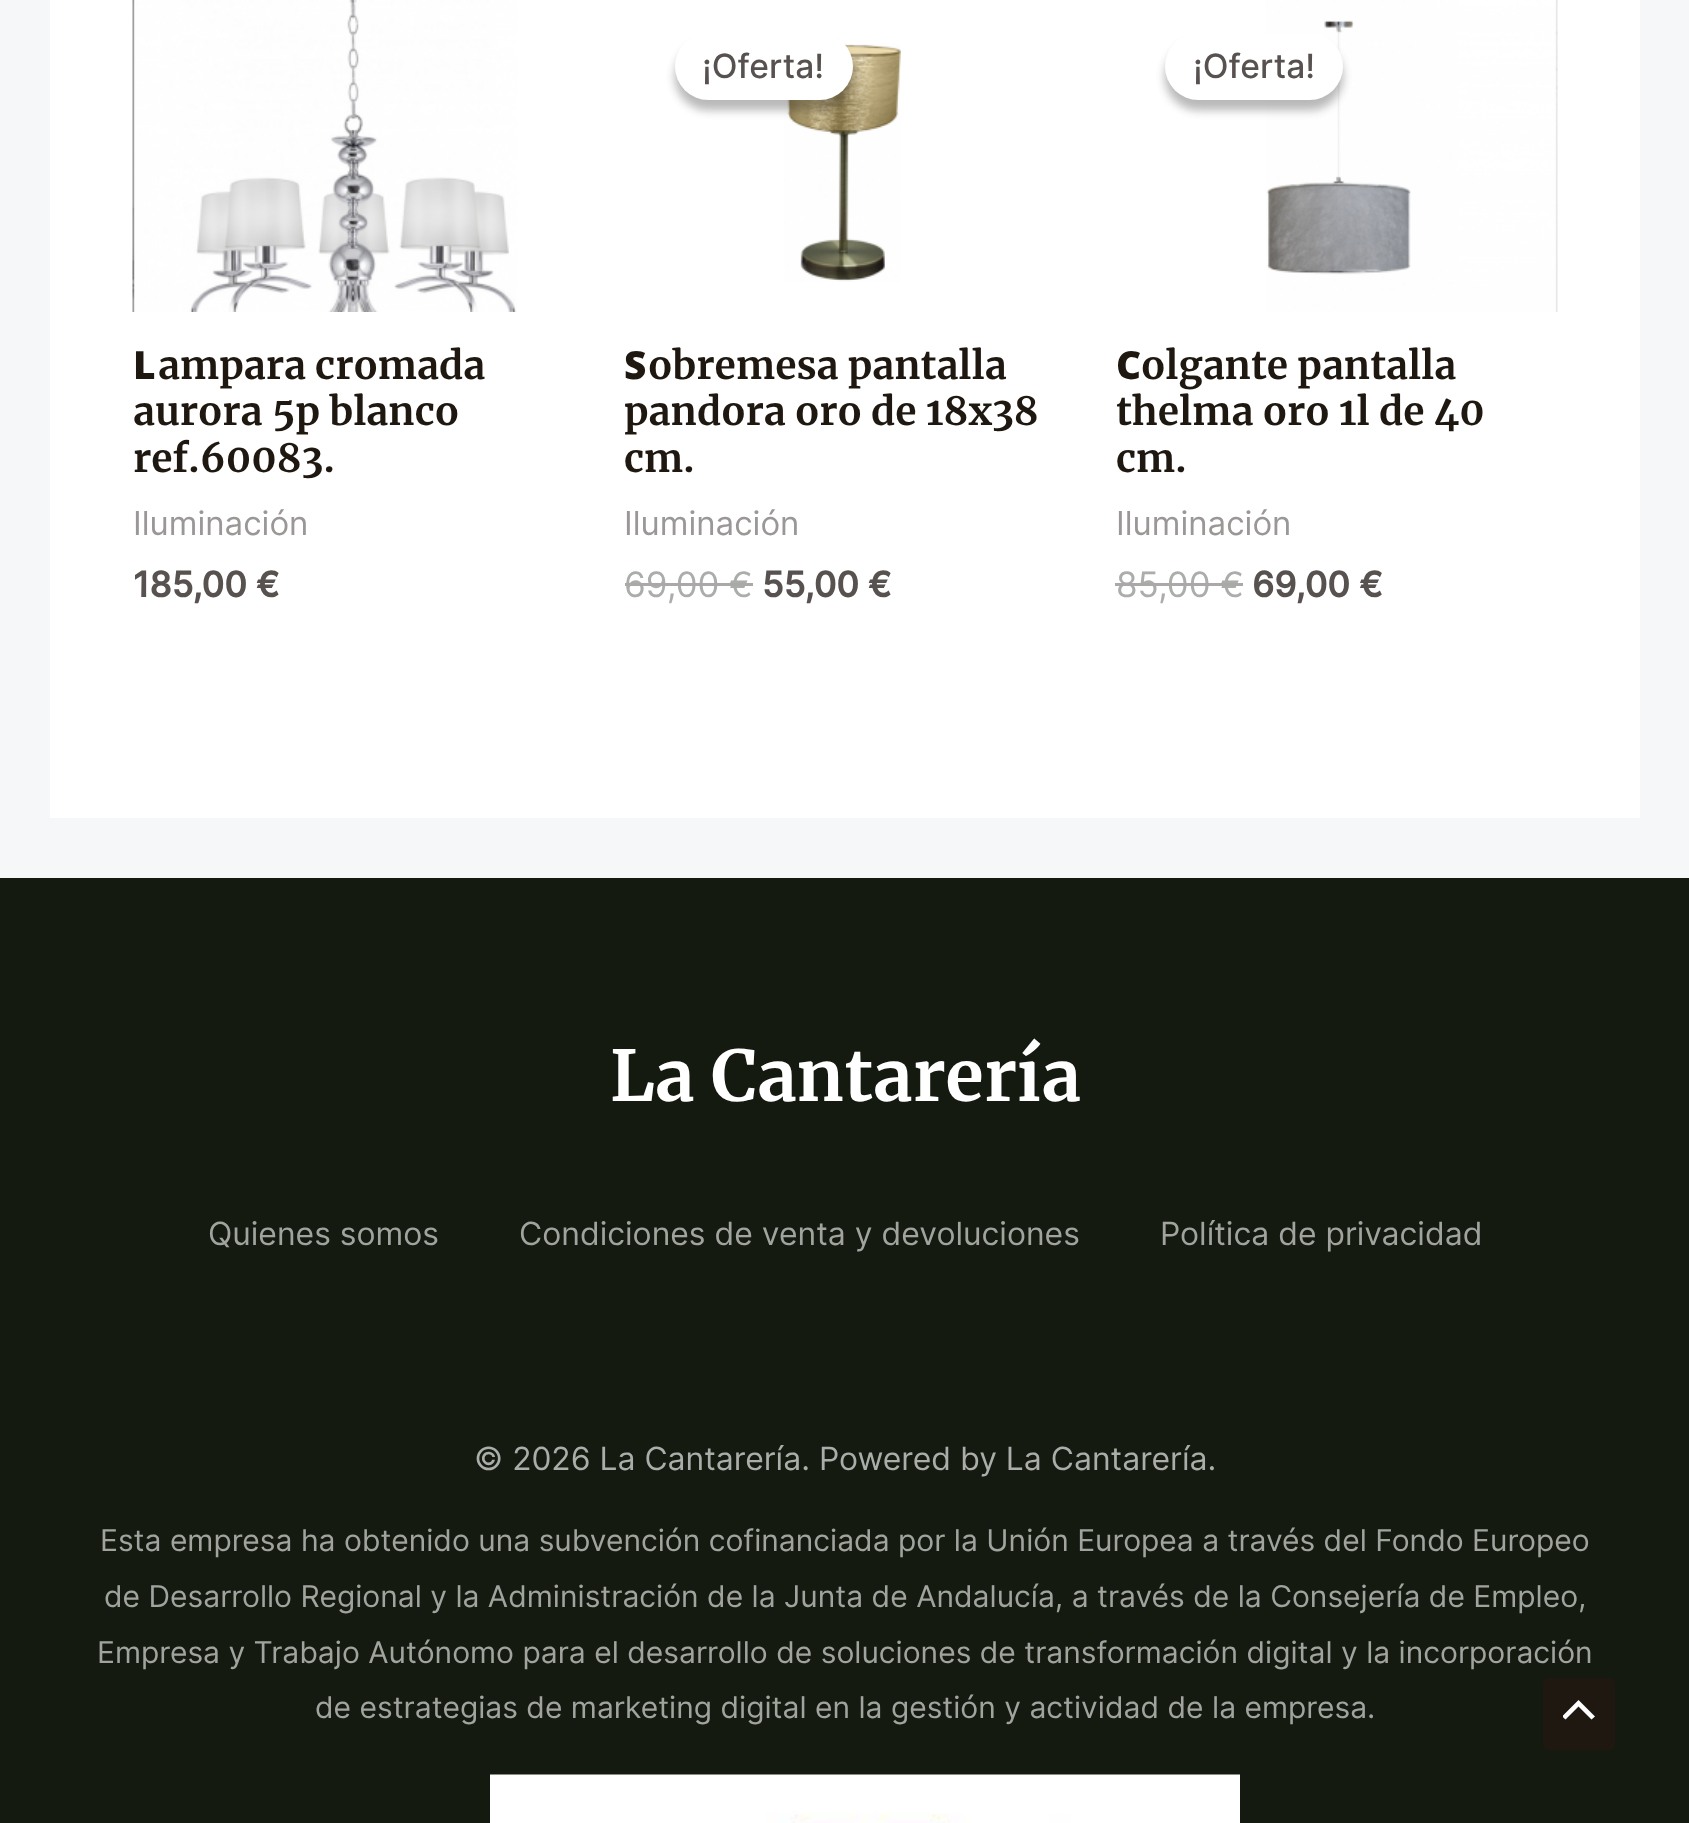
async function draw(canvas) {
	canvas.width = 1689;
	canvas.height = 1823;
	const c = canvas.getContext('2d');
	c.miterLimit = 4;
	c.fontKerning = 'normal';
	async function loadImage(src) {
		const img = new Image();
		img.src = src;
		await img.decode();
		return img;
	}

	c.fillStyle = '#f6f7f8';
	c.fillRect(0, 0, 1689, 1823);
	c.fillStyle = '#fff';
	c.fillRect(50, 0, 1590, 818);
	c.drawImage(await loadImage('img1.png'), 132, 0, 385, 312);
	c.font = '900 38.75px Noto Sans';
	c.fillStyle = '#1e1810';
	c.fillText('L', 133, 379);
	c.font = 'bold 38.75px Merriweather';
	for (const [text, x, y] of [
		['ampara cromada', 158, 379],
		['aurora 5p blanco', 133, 425],
		['ref.60083.', 133, 472],
	]) {
		c.fillText(text, x, y);
	}
	c.font = '33px Inter';
	c.fillStyle = '#9a9796';
	c.fillText('Iluminación', 133, 535);
	c.font = 'bold 35px Inter';
	c.fillStyle = '#575250';
	c.fillText('185,00 €', 133, 597);
	c.drawImage(await loadImage('img2.png'), 784, 44, 117, 238);
	c.fillStyle = '#00000026';
	c.filter = 'blur(5px)';
	c.beginPath();
	c.roundRect(675, 43, 178, 67, 33.5);
	c.fill();
	c.filter = 'none';
	c.filter = 'blur(5px)';
	c.beginPath();
	c.roundRect(675, 43, 178, 67, 33.5);
	c.fill();
	c.filter = 'none';
	c.fillStyle = '#fff';
	c.beginPath();
	c.roundRect(675, 33, 178, 67, 33.5);
	c.fill();
	c.font = '500 33.5px Inter';
	c.fillStyle = '#575250';
	c.fillText('¡Oferta!', 702, 78);
	c.font = '900 38.75px Noto Sans';
	c.fillStyle = '#1e1810';
	c.fillText('S', 624, 379);
	c.font = 'bold 38.75px Merriweather';
	for (const [text, x, y] of [
		['obremesa pantalla', 648, 379],
		['pandora oro de 18x38', 624, 425],
		['cm.', 624, 472],
	]) {
		c.fillText(text, x, y);
	}
	c.font = '33px Inter';
	c.fillStyle = '#9a9796';
	c.fillText('Iluminación', 624, 535);
	c.font = '35px Inter';
	c.fillStyle = '#aaada9';
	c.fillText('69,00 €', 624, 597);
	c.fillStyle = '#aba9a8';
	c.fillRect(625, 583, 128, 3);
	c.font = 'bold 35px Inter';
	c.fillStyle = '#575250';
	c.fillText('55,00 €', 762, 597);
	c.drawImage(await loadImage('img3.png'), 1266, 0, 292, 312);
	c.fillStyle = '#00000026';
	c.filter = 'blur(5px)';
	c.beginPath();
	c.roundRect(1165, 43, 178, 67, 33.5);
	c.fill();
	c.filter = 'none';
	c.filter = 'blur(5px)';
	c.beginPath();
	c.roundRect(1165, 43, 178, 67, 33.5);
	c.fill();
	c.filter = 'none';
	c.fillStyle = '#fff';
	c.beginPath();
	c.roundRect(1165, 33, 178, 67, 33.5);
	c.fill();
	c.font = '500 33.5px Inter';
	c.fillStyle = '#575250';
	c.fillText('¡Oferta!', 1193, 78);
	c.font = '900 38.75px Noto Sans';
	c.fillStyle = '#1e1810';
	c.fillText('C', 1116, 379);
	c.font = 'bold 38.75px Merriweather';
	for (const [text, x, y] of [
		['olgante pantalla', 1141, 379],
		['thelma oro 1l de 40', 1116, 425],
		['cm.', 1116, 472],
	]) {
		c.fillText(text, x, y);
	}
	c.font = '33px Inter';
	c.fillStyle = '#9a9796';
	c.fillText('Iluminación', 1116, 535);
	c.font = '35px Inter';
	c.fillStyle = '#aaada9';
	c.fillText('85,00 €', 1116, 597);
	c.fillStyle = '#aba9a8';
	c.fillRect(1115, 583, 128, 3);
	c.font = 'bold 35px Inter';
	c.fillStyle = '#575250';
	c.fillText('69,00 €', 1252, 597);
	c.fillStyle = '#141a0f';
	c.fillRect(0, 878, 1689, 945);
	c.font = 'bold 70px Merriweather';
	c.fillStyle = '#fff';
	c.fillText('La Cantarería', 610, 1101);
	c.font = '31.9px Inter';
	c.fillStyle = '#a1a39f';
	for (const [text, x, y] of [
		['Quienes somos', 208, 1245],
		['Condiciones de venta y devoluciones', 519, 1245],
		['Política de privacidad', 1160, 1245],
	]) {
		c.fillText(text, x, y);
	}
	c.fillStyle = '#aaada9';
	c.fillText('© 2026 La Cantarería. Powered by La Cantarería.', 474, 1470);
	c.font = '30px Inter';
	c.fillStyle = '#a1a39f';
	for (const [text, x, y] of [
		['Esta empresa ha obtenido una subvención cofinanciada por la Unión Europea a través del Fondo Europeo', 100, 1551],
		['de Desarrollo Regional y la Administración de la Junta de Andalucía, a través de la Consejería de Empleo,', 104, 1607],
		['Empresa y Trabajo Autónomo para el desarrollo de soluciones de transformación digital y la incorporación', 97, 1663],
		['de estrategias de marketing digital en la gestión y actividad de la empresa.', 315, 1718],
	]) {
		c.fillText(text, x, y);
	}
	c.drawImage(await loadImage('img4.png'), 490, 1774, 750, 49);
	c.fillStyle = '#1e1810';
	c.beginPath();
	c.roundRect(1543, 1678, 72, 72, 5);
	c.fill();
	c.save();
	c.beginPath();
	c.rect(1563, 1695, 32, 30);
	c.clip();
	c.fillStyle = '#fff';
	c.beginPath();
	c.moveTo(1595, 1716.5);
	c.lineTo(1578.5, 1700);
	c.lineTo(1562, 1716.5);
	c.lineTo(1565.5, 1719.5);
	c.lineTo(1578.5, 1706.5);
	c.lineTo(1591.5, 1719.5);
	c.closePath();
	c.fill();
	c.restore();
}

draw(document.querySelector('canvas'));
